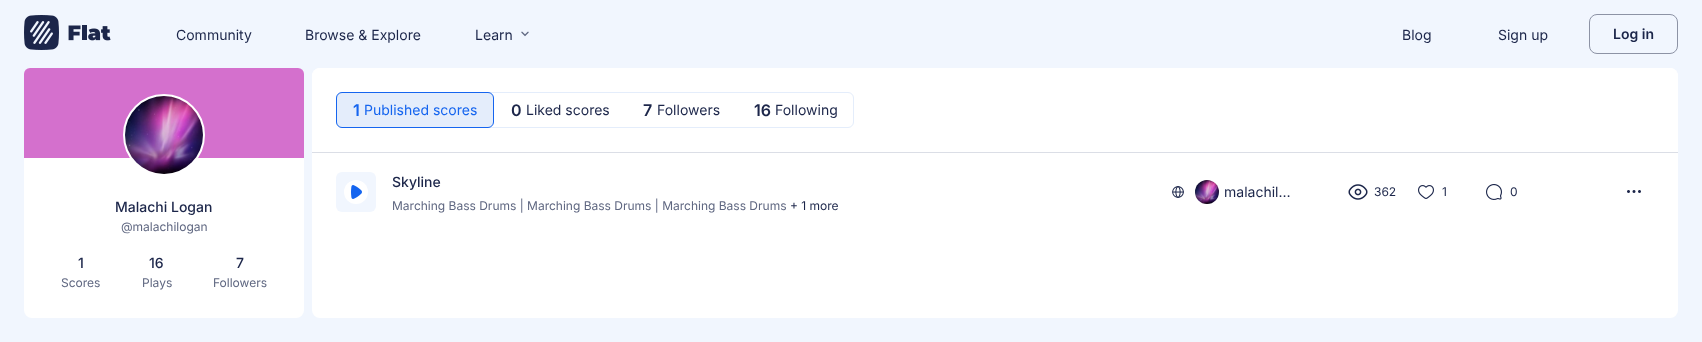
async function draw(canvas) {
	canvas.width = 1702;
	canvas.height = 342;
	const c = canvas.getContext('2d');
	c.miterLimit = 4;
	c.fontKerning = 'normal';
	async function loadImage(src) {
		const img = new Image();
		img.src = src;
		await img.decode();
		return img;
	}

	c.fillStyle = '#f1f6fe';
	c.fillRect(0, 0, 1702, 342);
	c.drawImage(await loadImage('img1.png'), 24, 15, 87, 35);
	c.font = '14px Inter';
	c.fillStyle = '#1c264a';
	for (const [text, x, y] of [
		['Community', 176, 40],
		['Browse & Explore', 305, 40],
		['Learn', 475, 40],
	]) {
		c.fillText(text, x, y);
	}
	c.drawImage(await loadImage('img2.png'), 521, 31, 8, 6);
	c.fillText('Blog', 1402, 40);
	c.fillText('Sign up', 1498, 40);
	c.beginPath();
	c.roundRect(1589.5, 14.5, 88, 39, 7.5);
	c.strokeStyle = '#8d93a5';
	c.stroke();
	c.font = '600 14px Inter';
	c.fillText('Log in', 1613, 39);
	c.fillStyle = '#fff';
	c.beginPath();
	c.roundRect(312, 68, 1366, 250, 8);
	c.fill();
	c.beginPath();
	c.roundRect(312, 68, 1366, 85, [8, 8, 0, 0]);
	c.fill();
	c.fillStyle = '#dbdee6';
	c.fillRect(312, 152, 1366, 1);
	c.beginPath();
	c.roundRect(336.5, 92.5, 517, 35, 5.5);
	c.strokeStyle = '#e4edfb';
	c.stroke();
	c.fillStyle = '#e4edfb';
	c.beginPath();
	c.roundRect(336.5, 92.5, 157, 35, 5.5);
	c.fill();
	c.strokeStyle = '#1565ef';
	c.stroke();
	c.font = '600 16px Inter';
	c.fillStyle = '#1565ef';
	c.fillText('1', 353, 116);
	c.font = '14px Inter';
	c.fillText('Published scores', 364, 115);
	c.font = '600 16px Inter';
	c.fillStyle = '#1c264a';
	c.fillText('0', 511, 116);
	c.font = '14px Inter';
	c.fillText('Liked scores', 526, 115);
	c.font = '600 16px Inter';
	c.fillText('7', 643, 116);
	c.font = '14px Inter';
	c.fillText('Followers', 657, 115);
	c.font = '600 16px Inter';
	c.fillText('16', 754, 116);
	c.font = '14px Inter';
	c.fillText('Following', 775, 115);
	c.fillStyle = '#f1f6fe';
	c.beginPath();
	c.roundRect(336, 172, 40, 40, 6);
	c.fill();
	c.fillStyle = '#fff';
	c.beginPath();
	c.arc(356, 192, 12, 0, 2 * Math.PI);
	c.fill();
	c.drawImage(await loadImage('img3.png'), 351, 185, 11, 14);
	c.font = '500 14px Inter';
	c.fillStyle = '#1c264a';
	c.fillText('Skyline', 392, 187);
	c.font = '12px Inter';
	c.fillStyle = '#5f6781';
	c.fillText('Marching Bass Drums | Marching Bass Drums | Marching Bass Drums', 392, 210);
	c.fillStyle = '#1c264a';
	c.fillText('+ 1 more', 790, 210);
	c.drawImage(await loadImage('img4.png'), 1172, 186, 12, 12);
	c.drawImage(await loadImage('img5.png'), 1195, 180, 24, 24);
	c.font = '14px Inter';
	c.fillText('malachil…', 1224, 197);
	c.drawImage(await loadImage('img6.png'), 1348, 184, 20, 16);
	c.font = '12px Inter';
	c.fillText('362', 1374, 196);
	c.drawImage(await loadImage('img7.png'), 1418, 185, 16, 14);
	c.fillText('1', 1442, 196);
	c.drawImage(await loadImage('img8.png'), 1486, 184, 16, 16);
	c.fillText('0', 1510, 196);
	c.drawImage(await loadImage('img9.png'), 1627, 190, 14, 3);
	c.fillStyle = '#fff';
	c.beginPath();
	c.roundRect(24, 68, 280, 250, 8);
	c.fill();
	c.fillStyle = '#d470cd';
	c.beginPath();
	c.roundRect(24, 68, 280, 90, [6, 6, 0, 0]);
	c.fill();
	c.fillStyle = '#fff';
	c.beginPath();
	c.arc(164, 135, 40, 0, 2 * Math.PI);
	c.fill();
	c.strokeStyle = '#fff';
	c.lineWidth = 2;
	c.stroke();
	c.drawImage(await loadImage('img10.png'), 125, 96, 78, 78);
	c.font = '500 14px Inter';
	c.fillStyle = '#1c264a';
	c.fillText('Malachi Logan', 115, 212);
	c.font = '12px Inter';
	c.fillStyle = '#5f6781';
	c.fillText('@malachilogan', 121, 231);
	c.font = '500 14px Inter';
	c.fillStyle = '#1c264a';
	c.fillText('1', 78, 268);
	c.font = '12px Inter';
	c.fillStyle = '#5f6781';
	c.fillText('Scores', 61, 287);
	c.font = '500 14px Inter';
	c.fillStyle = '#1c264a';
	c.fillText('16', 149, 268);
	c.font = '12px Inter';
	c.fillStyle = '#5f6781';
	c.fillText('Plays', 142, 287);
	c.font = '500 14px Inter';
	c.fillStyle = '#1c264a';
	c.fillText('7', 236, 268);
	c.font = '12px Inter';
	c.fillStyle = '#5f6781';
	c.fillText('Followers', 213, 287);
}

draw(document.querySelector('canvas'));
